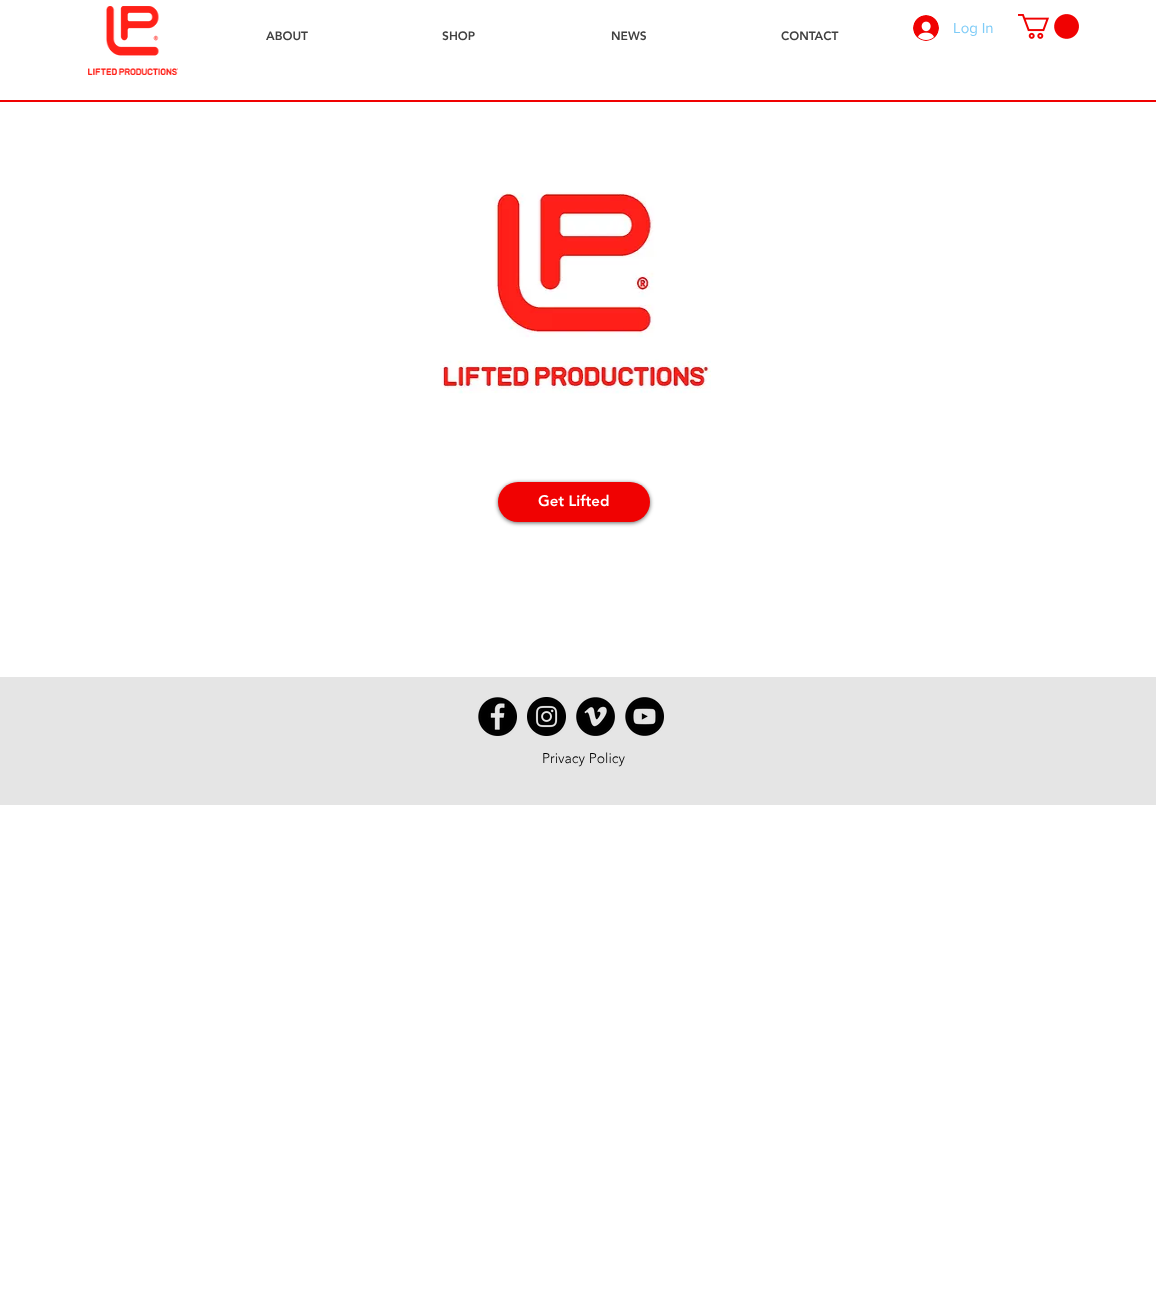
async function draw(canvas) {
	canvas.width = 1156;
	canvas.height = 1299;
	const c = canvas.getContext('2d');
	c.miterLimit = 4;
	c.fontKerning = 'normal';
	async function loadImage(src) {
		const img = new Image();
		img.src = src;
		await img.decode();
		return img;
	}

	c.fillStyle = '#fff';
	c.fillRect(0, 0, 1156, 1299);
	c.drawImage(await loadImage('img1.png'), 88, 6, 90, 69);
	c.font = '900 12px "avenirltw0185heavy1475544"';
	c.fillStyle = '#414141';
	for (const [text, x, y] of [
		['ABOUT', 266, 40],
		['SHOP', 442, 40],
		['NEWS', 611, 40],
		['CONTACT', 781, 40],
	]) {
		c.fillText(text, x, y);
	}
	c.drawImage(await loadImage('img2.png'), 913, 15, 26, 26);
	c.font = '15px "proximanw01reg"';
	c.fillStyle = '#7fccf7';
	c.fillText('Log In', 953, 33);
	c.drawImage(await loadImage('img3.png'), 1018, 14, 61, 25);
	c.fillStyle = '#f00202';
	c.fillRect(0, 100, 1156, 2);
	c.drawImage(await loadImage('img4.png'), 440, 192, 271, 202);
	c.fillStyle = '#00000099';
	c.filter = 'blur(2px)';
	c.beginPath();
	c.roundRect(498, 483, 152, 40, 20);
	c.fill();
	c.filter = 'none';
	c.fillStyle = '#f00202';
	c.beginPath();
	c.roundRect(498, 482, 152, 40, 20);
	c.fill();
	c.font = '900 15px "avenirltw0185heavy1475544"';
	c.fillStyle = '#fff';
	c.fillText('Get Lifted', 538, 506);
	c.fillStyle = '#e5e5e5';
	c.fillRect(0, 677, 1156, 128);
	c.drawImage(await loadImage('img5.png'), 478, 697, 39, 39);
	c.drawImage(await loadImage('img6.png'), 527, 697, 39, 39);
	c.drawImage(await loadImage('img7.png'), 576, 697, 39, 39);
	c.drawImage(await loadImage('img8.png'), 625, 697, 39, 39);
	c.font = '300 14px "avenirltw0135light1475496"';
	c.fillStyle = '#000';
	c.fillText('Privacy Policy', 542, 763);
}

draw(document.querySelector('canvas'));
